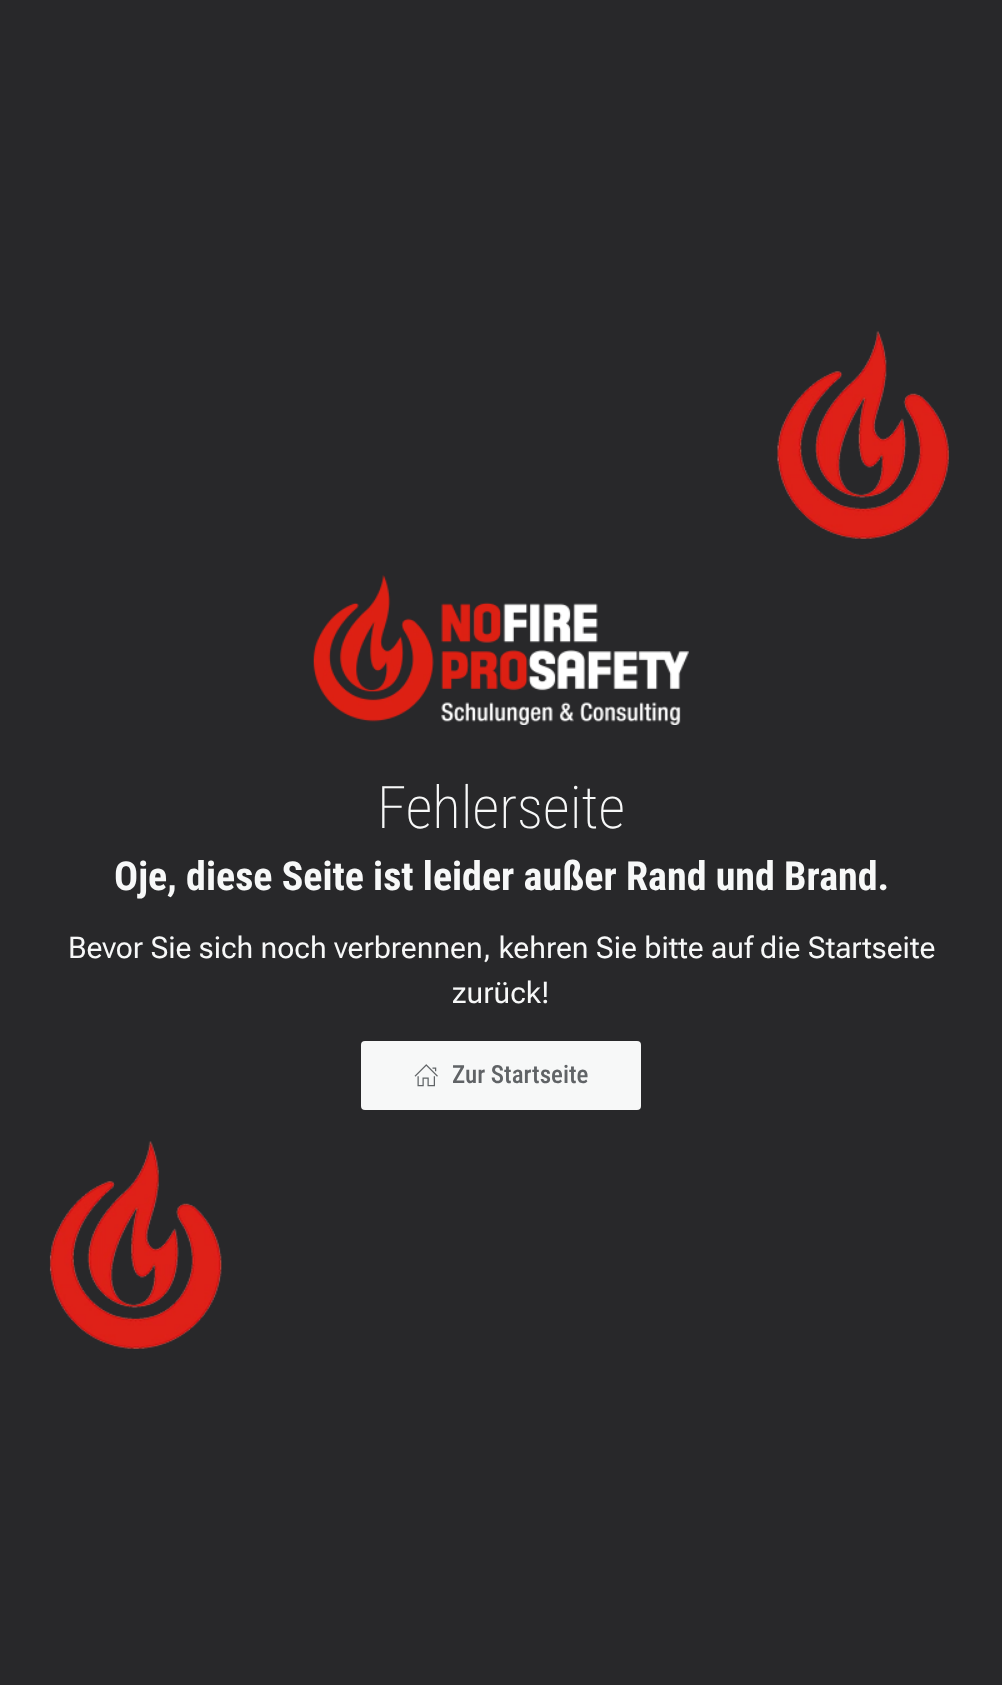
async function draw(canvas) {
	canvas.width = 1002;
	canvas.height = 1685;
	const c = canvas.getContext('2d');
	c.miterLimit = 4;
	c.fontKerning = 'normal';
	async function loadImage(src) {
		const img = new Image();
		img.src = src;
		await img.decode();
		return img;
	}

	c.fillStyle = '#28282a';
	c.fillRect(0, 0, 1002, 1685);
	c.drawImage(await loadImage('img1.png'), 777, 331, 172, 208);
	c.drawImage(await loadImage('img2.png'), 313, 575, 376, 150);
	c.font = '200 58.75px Roboto Condensed';
	c.fillStyle = '#f7f8f8';
	c.fillText('Fehlerseite', 377, 828);
	c.font = 'bold 40px Roboto Condensed';
	c.fillText('Oje, diese Seite ist leider außer Rand und Brand.', 114, 890);
	c.font = '30px Roboto Flex';
	c.fillText('Bevor Sie sich noch verbrennen, kehren Sie bitte auf die Startseite', 68, 958);
	c.fillText('zurück!', 452, 1003);
	c.beginPath();
	c.roundRect(361, 1041, 280, 69, 4);
	c.fill();
	c.drawImage(await loadImage('img3.png'), 414, 1064, 24, 23);
	c.font = '500 25px Roboto Condensed';
	c.fillStyle = '#606366';
	c.fillText('Zur Startseite', 452, 1083);
	c.drawImage(await loadImage('img4.png'), 49, 1141, 173, 208);
}

draw(document.querySelector('canvas'));
